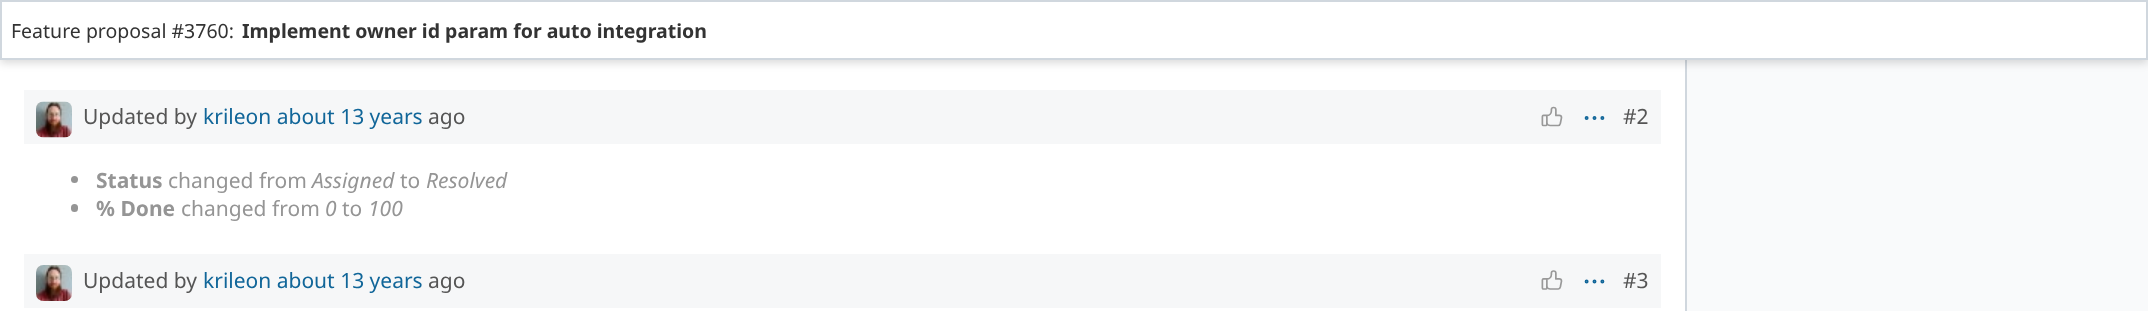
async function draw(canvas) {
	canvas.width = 2148;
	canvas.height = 311;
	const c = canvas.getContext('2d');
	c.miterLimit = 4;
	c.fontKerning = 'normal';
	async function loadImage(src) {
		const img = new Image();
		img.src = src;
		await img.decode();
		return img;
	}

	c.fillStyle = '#fff';
	c.fillRect(0, 0, 2148, 311);
	c.fillStyle = '#f9fafb';
	c.fillRect(1687, 60, 461, 251);
	c.fillStyle = '#d0d7de';
	c.fillRect(1685, 60, 2, 251);
	c.fillStyle = '#00000026';
	c.filter = 'blur(4.5px)';
	c.beginPath();
	c.rect(0, 3, 2148, 60);
	c.fill();
	c.filter = 'none';
	c.fillStyle = '#fff';
	c.beginPath();
	c.rect(1, 1, 2146, 58);
	c.fill();
	c.strokeStyle = '#d0d7de';
	c.lineWidth = 2;
	c.stroke();
	c.font = '19.5px Noto Sans';
	c.fillStyle = '#333';
	c.fillText('Feature proposal #3760:', 11, 38);
	c.font = 'bold 19.5px Noto Sans';
	c.fillText('Implement owner id param for auto integration', 242, 38);
	c.fillStyle = '#f6f7f8';
	c.fillRect(24, 90, 1637, 54);
	c.drawImage(await loadImage('img1.png'), 36, 101, 36, 37);
	c.font = '21px Noto Sans';
	c.fillStyle = '#555';
	c.fillText('Updated by', 83, 124);
	c.fillStyle = '#169';
	c.fillText('krileon about 13 years', 203, 124);
	c.fillStyle = '#555';
	c.fillText('ago', 428, 124);
	c.drawImage(await loadImage('img2.png'), 1541, 106, 22, 21);
	c.drawImage(await loadImage('img3.png'), 1584, 116, 21, 4);
	c.fillText('#2', 1623, 124);
	c.fillStyle = '#959595';
	c.beginPath();
	c.arc(74.5, 179.5, 3.5, 0, 2 * Math.PI);
	c.fill();
	c.font = 'bold 21px Noto Sans';
	c.fillText('Status', 96, 188);
	c.font = '21px Noto Sans';
	c.fillText('changed from', 168, 188);
	c.font = 'italic 21px Noto Sans';
	c.fillText('Assigned', 312, 188);
	c.font = '21px Noto Sans';
	c.fillText('to', 400, 188);
	c.font = 'italic 21px Noto Sans';
	c.fillText('Resolved', 426, 188);
	c.beginPath();
	c.roundRect(71, 204, 7, 8, 3.5);
	c.fill();
	c.font = 'bold 21px Noto Sans';
	c.fillText('% Done', 96, 216);
	c.font = '21px Noto Sans';
	c.fillText('changed from', 181, 216);
	c.font = 'italic 21px Noto Sans';
	c.fillText('0', 325, 216);
	c.font = '21px Noto Sans';
	c.fillText('to', 342, 216);
	c.font = 'italic 21px Noto Sans';
	c.fillText('100', 368, 216);
	c.fillStyle = '#f6f7f8';
	c.fillRect(24, 254, 1637, 54);
	c.drawImage(await loadImage('img4.png'), 36, 265, 36, 36);
	c.font = '21px Noto Sans';
	c.fillStyle = '#555';
	c.fillText('Updated by', 83, 288);
	c.fillStyle = '#169';
	c.fillText('krileon about 13 years', 203, 288);
	c.fillStyle = '#555';
	c.fillText('ago', 428, 288);
	c.drawImage(await loadImage('img5.png'), 1541, 270, 22, 20);
	c.drawImage(await loadImage('img6.png'), 1584, 279, 21, 5);
	c.fillText('#3', 1623, 288);
}

draw(document.querySelector('canvas'));
